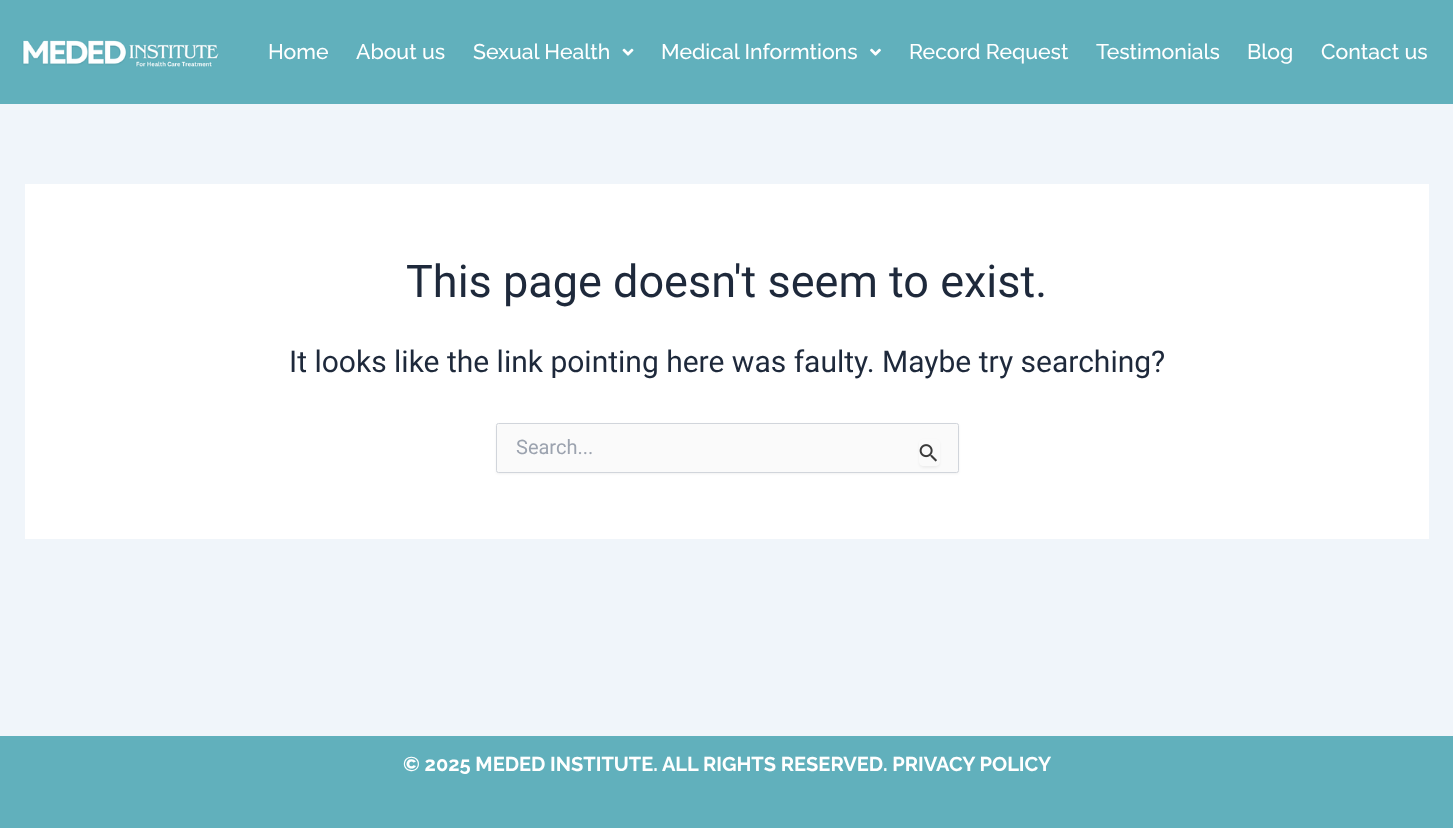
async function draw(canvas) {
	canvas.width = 1453;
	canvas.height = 828;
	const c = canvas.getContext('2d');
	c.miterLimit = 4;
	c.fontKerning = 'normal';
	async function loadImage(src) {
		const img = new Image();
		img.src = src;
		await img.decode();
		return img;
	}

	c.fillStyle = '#f0f5fa';
	c.fillRect(0, 0, 1453, 828);
	c.fillStyle = '#61b0bc';
	c.fillRect(0, 0, 1453, 104);
	c.drawImage(await loadImage('img1.png'), 22, 40, 197, 27);
	c.font = '500 21.25px Raleway';
	c.fillStyle = '#fff';
	for (const [text, x, y] of [
		['Home', 268, 59],
		['About us', 356, 59],
		['Sexual Health', 473, 59],
	]) {
		c.fillText(text, x, y);
	}
	c.drawImage(await loadImage('img2.png'), 622, 48, 12, 8);
	c.fillText('Medical Informtions', 661, 59);
	c.drawImage(await loadImage('img3.png'), 870, 48, 11, 8);
	for (const [text, x, y] of [
		['Record Request', 909, 59],
		['Testimonials', 1096, 59],
		['Blog', 1247, 59],
		['Contact us', 1321, 59],
	]) {
		c.fillText(text, x, y);
	}
	c.fillRect(25, 184, 1404, 355);
	c.font = '45px Roboto';
	c.fillStyle = '#1e293b';
	c.fillText('This page doesn\'t seem to exist.', 406, 297);
	c.font = '30px Roboto';
	c.fillText('It looks like the link pointing here was faulty. Maybe try searching?', 289, 372);
	c.fillStyle = '#0000000d';
	c.filter = 'blur(1px)';
	c.beginPath();
	c.roundRect(496, 424, 463, 50, 2.5);
	c.fill();
	c.filter = 'none';
	c.fillStyle = '#fafafa';
	c.beginPath();
	c.roundRect(496.5, 423.5, 462, 49, 2);
	c.fill();
	c.strokeStyle = '#d1d5db';
	c.stroke();
	c.font = '20px Roboto';
	c.fillStyle = '#9ca3af';
	c.fillText('Search...', 516, 454);
	c.save();
	c.beginPath();
	c.moveTo(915, 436);
	c.lineTo(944, 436);
	c.lineTo(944, 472);
	c.lineTo(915, 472);
	c.closePath();
	c.moveTo(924, 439);
	c.lineTo(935, 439);
	c.bezierCurveTo(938, 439, 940, 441, 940, 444);
	c.lineTo(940, 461);
	c.bezierCurveTo(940, 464, 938, 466, 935, 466);
	c.lineTo(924, 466);
	c.bezierCurveTo(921, 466, 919, 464, 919, 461);
	c.lineTo(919, 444);
	c.bezierCurveTo(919, 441, 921, 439, 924, 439);
	c.closePath();
	c.clip('evenodd');
	c.fillStyle = '#0000000d';
	c.filter = 'blur(1px)';
	c.beginPath();
	c.roundRect(919, 440, 21, 28, 5);
	c.fill();
	c.filter = 'none';
	c.restore();
	c.drawImage(await loadImage('img4.png'), 919, 444, 18, 18);
	c.fillStyle = '#61b0bc';
	c.fillRect(0, 736, 1453, 92);
	c.font = 'bold 20px Raleway';
	c.fillStyle = '#fff';
	c.fillText('© 2025 MEDED INSTITUTE. ALL RIGHTS RESERVED. PRIVACY POLICY', 403, 771);
}

draw(document.querySelector('canvas'));
